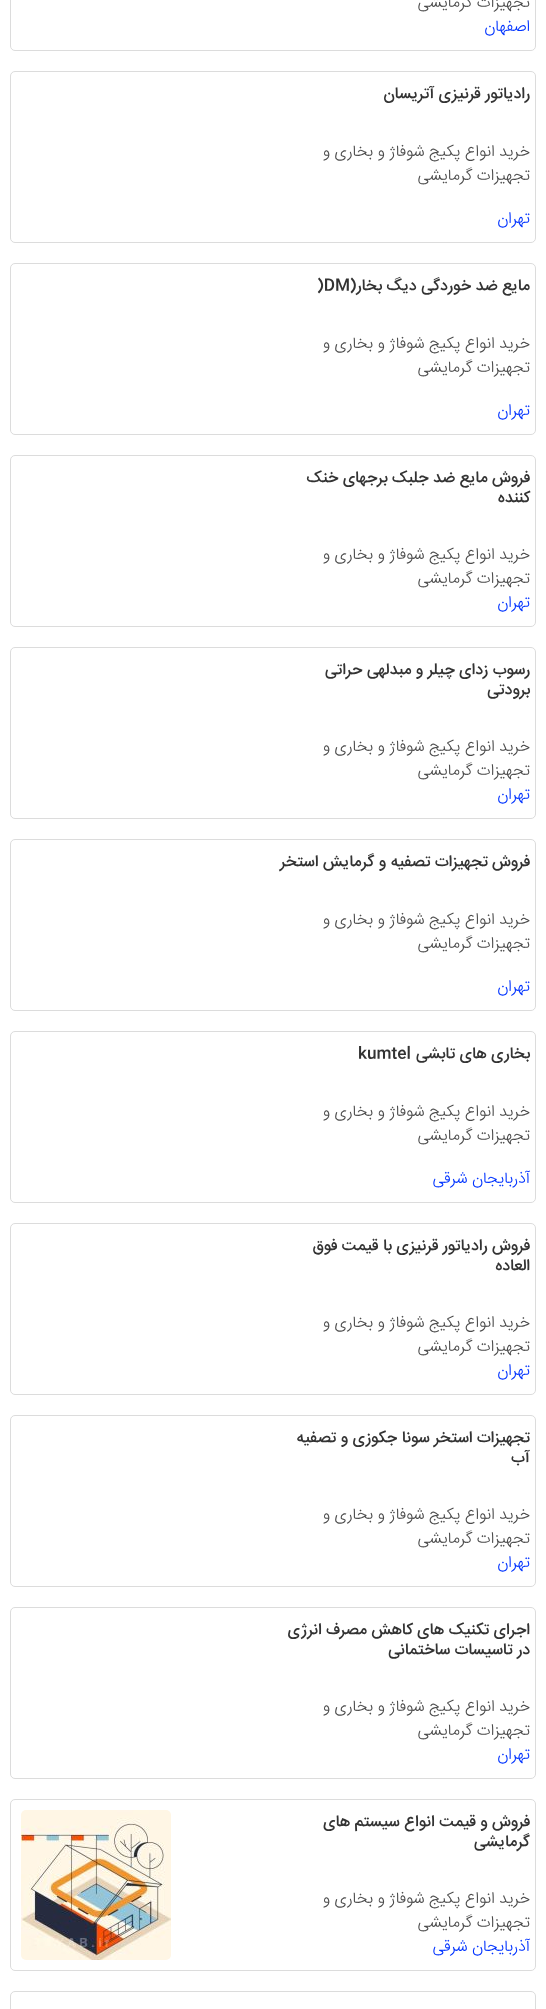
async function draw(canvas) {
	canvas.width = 546;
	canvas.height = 2009;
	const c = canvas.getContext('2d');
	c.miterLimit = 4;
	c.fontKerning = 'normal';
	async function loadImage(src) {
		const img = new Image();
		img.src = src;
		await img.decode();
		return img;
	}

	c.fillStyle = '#fff';
	c.fillRect(0, 0, 546, 2009);
	c.beginPath();
	c.roundRect(10.5, -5.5, 525, 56, 4.5);
	c.strokeStyle = '#dcdcdc';
	c.stroke();
	c.direction = 'rtl';
	c.font = '300 16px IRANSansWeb';
	c.fillStyle = '#4b4b4b';
	c.fillText('تجهیزات گرمایشی', 530, 7);
	c.fillStyle = '#03f';
	c.fillText('اصفهان', 530, 31);
	c.beginPath();
	c.roundRect(10.5, 71.5, 525, 171, 4.5);
	c.stroke();
	c.font = '500 16px IRANSansWeb';
	c.fillStyle = '#333';
	c.fillText('رادیاتور قرنیزی آتریسان', 530, 98);
	c.font = '300 16px IRANSansWeb';
	c.fillStyle = '#4b4b4b';
	c.fillText('خرید انواع پکیج شوفاژ و بخاری و', 530, 156);
	c.fillText('تجهیزات گرمایشی', 530, 180);
	c.fillStyle = '#03f';
	c.fillText('تهران', 530, 223);
	c.beginPath();
	c.roundRect(10.5, 263.5, 525, 171, 4.5);
	c.stroke();
	c.font = '500 16px IRANSansWeb';
	c.fillStyle = '#333';
	c.fillText('مایع ضد خوردگی دیگ بخار(', 530, 290);
	c.direction = 'ltr';
	c.fillText(')DM', 317, 290);
	c.direction = 'rtl';
	c.font = '300 16px IRANSansWeb';
	c.fillStyle = '#4b4b4b';
	c.fillText('خرید انواع پکیج شوفاژ و بخاری و', 530, 348);
	c.fillText('تجهیزات گرمایشی', 530, 372);
	c.fillStyle = '#03f';
	c.fillText('تهران', 530, 415);
	c.beginPath();
	c.roundRect(10.5, 455.5, 525, 171, 4.5);
	c.stroke();
	c.font = '500 16px IRANSansWeb';
	c.fillStyle = '#333';
	c.fillText('فروش مایع ضد جلبک برجهای خنک', 530, 482);
	c.fillText('کننده', 530, 502);
	c.font = '300 16px IRANSansWeb';
	c.fillStyle = '#4b4b4b';
	c.fillText('خرید انواع پکیج شوفاژ و بخاری و', 530, 559);
	c.fillText('تجهیزات گرمایشی', 530, 583);
	c.fillStyle = '#03f';
	c.fillText('تهران', 530, 607);
	c.beginPath();
	c.roundRect(10.5, 647.5, 525, 171, 4.5);
	c.stroke();
	c.font = '500 16px IRANSansWeb';
	c.fillStyle = '#333';
	c.fillText('رسوب زدای چیلر و مبدلهی حراتی', 530, 674);
	c.fillText('برودتی', 530, 694);
	c.font = '300 16px IRANSansWeb';
	c.fillStyle = '#4b4b4b';
	c.fillText('خرید انواع پکیج شوفاژ و بخاری و', 530, 751);
	c.fillText('تجهیزات گرمایشی', 530, 775);
	c.fillStyle = '#03f';
	c.fillText('تهران', 530, 799);
	c.beginPath();
	c.roundRect(10.5, 839.5, 525, 171, 4.5);
	c.stroke();
	c.font = '500 16px IRANSansWeb';
	c.fillStyle = '#333';
	c.fillText('فروش', 530, 866);
	c.fillText('تجهیزات تصفیه و گرمایش استخر', 488, 866);
	c.font = '300 16px IRANSansWeb';
	c.fillStyle = '#4b4b4b';
	c.fillText('خرید انواع پکیج شوفاژ و بخاری و', 530, 924);
	c.fillText('تجهیزات گرمایشی', 530, 948);
	c.fillStyle = '#03f';
	c.fillText('تهران', 530, 991);
	c.beginPath();
	c.roundRect(10.5, 1031.5, 525, 171, 4.5);
	c.stroke();
	c.font = '500 16px IRANSansWeb';
	c.fillStyle = '#333';
	c.fillText('بخاری های تابشی', 530, 1058);
	c.direction = 'ltr';
	c.fillText('kumtel', 358, 1058);
	c.direction = 'rtl';
	c.font = '300 16px IRANSansWeb';
	c.fillStyle = '#4b4b4b';
	c.fillText('خرید انواع پکیج شوفاژ و بخاری و', 530, 1116);
	c.fillText('تجهیزات گرمایشی', 530, 1140);
	c.fillStyle = '#03f';
	c.fillText('آذربایجان شرقی', 530, 1183);
	c.beginPath();
	c.roundRect(10.5, 1223.5, 525, 171, 4.5);
	c.stroke();
	c.font = '500 16px IRANSansWeb';
	c.fillStyle = '#333';
	c.fillText('فروش رادیاتور قرنیزی با قیمت فوق', 530, 1250);
	c.fillText('العاده', 530, 1270);
	c.font = '300 16px IRANSansWeb';
	c.fillStyle = '#4b4b4b';
	c.fillText('خرید انواع پکیج شوفاژ و بخاری و', 530, 1327);
	c.fillText('تجهیزات گرمایشی', 530, 1351);
	c.fillStyle = '#03f';
	c.fillText('تهران', 530, 1375);
	c.beginPath();
	c.roundRect(10.5, 1415.5, 525, 171, 4.5);
	c.stroke();
	c.font = '500 16px IRANSansWeb';
	c.fillStyle = '#333';
	c.fillText('تجهیزات استخر سونا جکوزی و تصفیه', 530, 1442);
	c.fillText('آب', 530, 1462);
	c.font = '300 16px IRANSansWeb';
	c.fillStyle = '#4b4b4b';
	c.fillText('خرید انواع پکیج شوفاژ و بخاری و', 530, 1519);
	c.fillText('تجهیزات گرمایشی', 530, 1543);
	c.fillStyle = '#03f';
	c.fillText('تهران', 530, 1567);
	c.beginPath();
	c.roundRect(10.5, 1607.5, 525, 171, 4.5);
	c.stroke();
	c.font = '500 16px IRANSansWeb';
	c.fillStyle = '#333';
	c.fillText('اجرای تکنیک های کاهش مصرف انرژی', 530, 1634);
	c.fillText('در تاسیسات ساختمانی', 530, 1654);
	c.font = '300 16px IRANSansWeb';
	c.fillStyle = '#4b4b4b';
	c.fillText('خرید انواع پکیج شوفاژ و بخاری و', 530, 1711);
	c.fillText('تجهیزات گرمایشی', 530, 1735);
	c.fillStyle = '#03f';
	c.fillText('تهران', 530, 1759);
	c.beginPath();
	c.roundRect(10.5, 1799.5, 525, 171, 4.5);
	c.stroke();
	c.font = '500 16px IRANSansWeb';
	c.fillStyle = '#333';
	c.fillText('فروش و قیمت انواع سیستم های', 530, 1826);
	c.fillText('گرمایشی', 530, 1846);
	c.font = '300 16px IRANSansWeb';
	c.fillStyle = '#4b4b4b';
	c.fillText('خرید انواع پکیج شوفاژ و بخاری و', 530, 1903);
	c.fillText('تجهیزات گرمایشی', 530, 1927);
	c.fillStyle = '#03f';
	c.fillText('آذربایجان شرقی', 530, 1951);
	c.drawImage(await loadImage('img1.png'), 21, 1810, 150, 150);
	c.beginPath();
	c.roundRect(10.5, 1991.5, 525, 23, 4.5);
	c.stroke();
}

draw(document.querySelector('canvas'));
